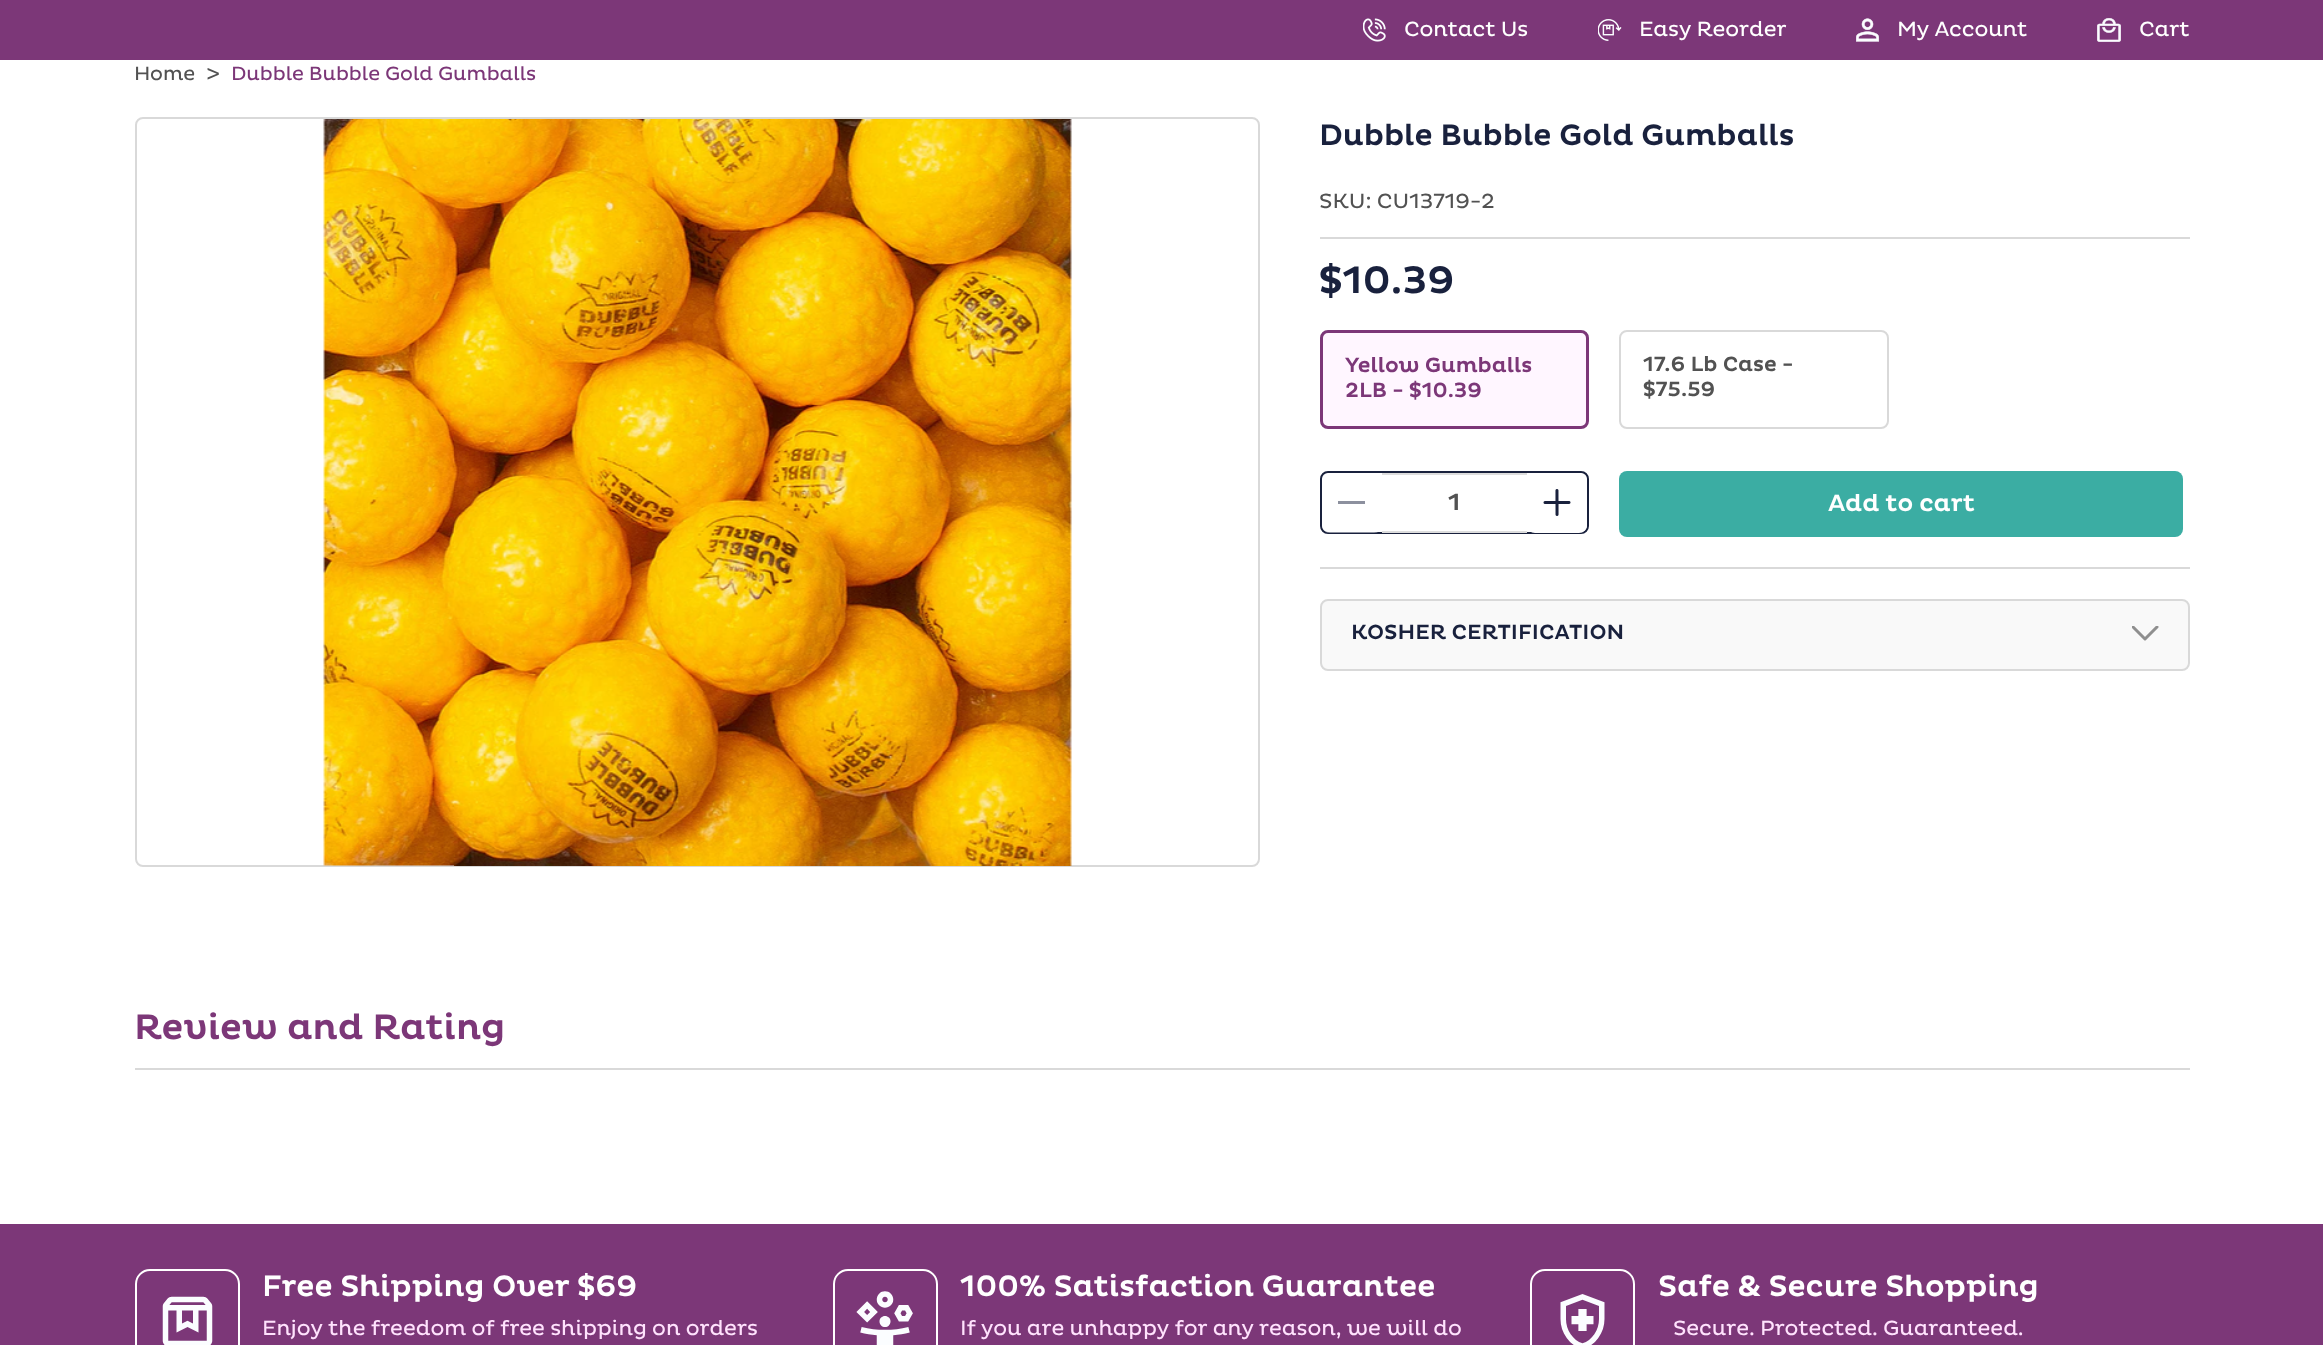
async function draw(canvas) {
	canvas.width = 2323;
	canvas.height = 1345;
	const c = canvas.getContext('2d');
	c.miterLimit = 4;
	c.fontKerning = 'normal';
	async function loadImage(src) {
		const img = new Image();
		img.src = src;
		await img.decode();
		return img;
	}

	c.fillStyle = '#fff';
	c.fillRect(0, 0, 2323, 1345);
	c.fillStyle = '#7c3778';
	c.fillRect(0, 0, 2323, 60);
	c.drawImage(await loadImage('img1.png'), 1363, 18, 23, 24);
	c.font = '21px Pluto';
	c.fillStyle = '#fff';
	c.fillText('Contact Us', 1404, 36);
	c.drawImage(await loadImage('img2.png'), 1598, 19, 24, 22);
	c.fillText('Easy Reorder', 1639, 36);
	c.drawImage(await loadImage('img3.png'), 1856, 18, 24, 24);
	c.fillText('My Account', 1897, 36);
	c.drawImage(await loadImage('img4.png'), 2097, 18, 24, 24);
	c.fillText('Cart', 2139, 36);
	c.font = '19.5px Pluto';
	c.fillStyle = '#525252';
	c.fillText('Home', 134, 80);
	c.font = '24px Pluto';
	c.fillText('>', 206, 81);
	c.font = '19.5px Pluto';
	c.fillStyle = '#7c3778';
	c.fillText('Dubble Bubble Gold Gumballs', 231, 80);
	c.beginPath();
	c.roundRect(136, 118, 1123, 748, 7);
	c.strokeStyle = '#d9d9d9';
	c.lineWidth = 2;
	c.stroke();
	c.drawImage(await loadImage('img5.png'), 323, 119, 749, 747);
	c.font = '500 30px Pluto';
	c.fillStyle = '#19213d';
	c.fillText('Dubble Bubble Gold Gumballs', 1319, 145);
	c.fillStyle = '#d9d9d9';
	c.fillRect(1320, 237, 870, 2);
	c.font = '21px Pluto';
	c.fillStyle = '#525252';
	c.fillText('SKU: CU13719-2', 1319, 208);
	c.font = '500 39px Pluto';
	c.fillStyle = '#19213d';
	c.fillText('$10.39', 1319, 293);
	c.fillStyle = '#fff6ff';
	c.beginPath();
	c.roundRect(1321.5, 331.5, 266, 96, 6.5);
	c.fill();
	c.strokeStyle = '#7c3778';
	c.lineWidth = 3;
	c.stroke();
	c.font = '500 21px Pluto';
	c.fillStyle = '#7c3778';
	c.fillText('Yellow Gumballs', 1345, 372);
	c.fillText('2LB - $10.39', 1345, 397);
	c.beginPath();
	c.roundRect(1620, 331, 268, 97, 7);
	c.strokeStyle = '#d9d9d9';
	c.lineWidth = 2;
	c.stroke();
	c.fillStyle = '#525252';
	c.fillText('17.6 Lb Case -', 1643, 371);
	c.fillText('$75.59', 1643, 396);
	c.beginPath();
	c.roundRect(1321, 472, 267, 61, 7);
	c.strokeStyle = '#19213d';
	c.stroke();
	c.fillStyle = '#ffffff80';
	c.beginPath();
	c.roundRect(1322, 473, 60, 60, 8);
	c.fill();
	for (const [x, y, w, h, color] of [
		[1338, 501, 27, 3, '#8c909e'],
		[1382, 473, 145, 2, '#ddd'],
		[1382, 531, 145, 2, '#ddd'],
	]) {
		c.fillStyle = color;
		c.fillRect(x, y, w, h);
	}
	c.font = '500 24px Pluto';
	c.fillStyle = '#525252';
	c.fillText('1', 1448, 510);
	c.fillStyle = '#fff';
	c.beginPath();
	c.roundRect(1527, 473, 60, 60, 8);
	c.fill();
	c.drawImage(await loadImage('img6.png'), 1543, 489, 28, 27);
	c.fillStyle = '#3bada3';
	c.beginPath();
	c.roundRect(1619, 471, 564, 66, 8);
	c.fill();
	c.fillStyle = '#fff';
	c.fillText('Add to cart', 1828, 511);
	c.fillStyle = '#d9d9d9';
	c.fillRect(1320, 567, 870, 2);
	c.fillStyle = '#f9f9f9';
	c.beginPath();
	c.roundRect(1321, 600, 868, 70, 7);
	c.fill();
	c.strokeStyle = '#d9d9d9';
	c.stroke();
	c.font = '500 21px Pluto';
	c.fillStyle = '#19213d';
	c.fillText('KOSHER CERTIFICATION', 1351, 639);
	c.save();
	c.beginPath();
	c.rect(2132, 626, 27, 15);
	c.clip();
	c.beginPath();
	c.moveTo(2157, 627);
	c.lineTo(2145, 639);
	c.lineTo(2133, 627);
	c.strokeStyle = '#8f8f8f';
	c.lineWidth = 3;
	c.lineCap = 'round';
	c.lineJoin = 'round';
	c.stroke();
	c.restore();
	c.fillStyle = '#d9d9d9';
	c.fillRect(135, 1068, 2055, 2);
	c.font = '500 36px Pluto';
	c.fillStyle = '#7c3778';
	c.fillText('Review and Rating', 134, 1039);
	c.fillRect(0, 1224, 2323, 121);
	c.beginPath();
	c.roundRect(136, 1270, 103, 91, 14);
	c.strokeStyle = '#fff';
	c.stroke();
	c.drawImage(await loadImage('img7.png'), 162, 1296, 51, 49);
	c.font = '500 30px Pluto';
	c.fillStyle = '#fff';
	c.fillText('Free Shipping Over $69', 262, 1296);
	c.font = '21px Pluto';
	c.fillStyle = '#ffe2fd';
	c.fillText('Enjoy the freedom of free shipping on orders', 262, 1335);
	c.beginPath();
	c.roundRect(834, 1270, 103, 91, 14);
	c.stroke();
	c.drawImage(await loadImage('img8.png'), 856, 1291, 57, 54);
	c.font = '500 30px Pluto';
	c.fillStyle = '#fff';
	c.fillText('100% Satisfaction Guarantee', 960, 1296);
	c.font = '21px Pluto';
	c.fillStyle = '#ffe2fd';
	c.fillText('If you are unhappy for any reason, we will do', 960, 1335);
	c.beginPath();
	c.roundRect(1531, 1270, 103, 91, 14);
	c.stroke();
	c.drawImage(await loadImage('img9.png'), 1560, 1294, 45, 51);
	c.font = '500 30px Pluto';
	c.fillStyle = '#fff';
	c.fillText('Safe & Secure Shopping', 1658, 1296);
	c.font = '21px Pluto';
	c.fillStyle = '#ffe2fd';
	c.fillText('Secure. Protected. Guaranteed.', 1673, 1335);
}

draw(document.querySelector('canvas'));
